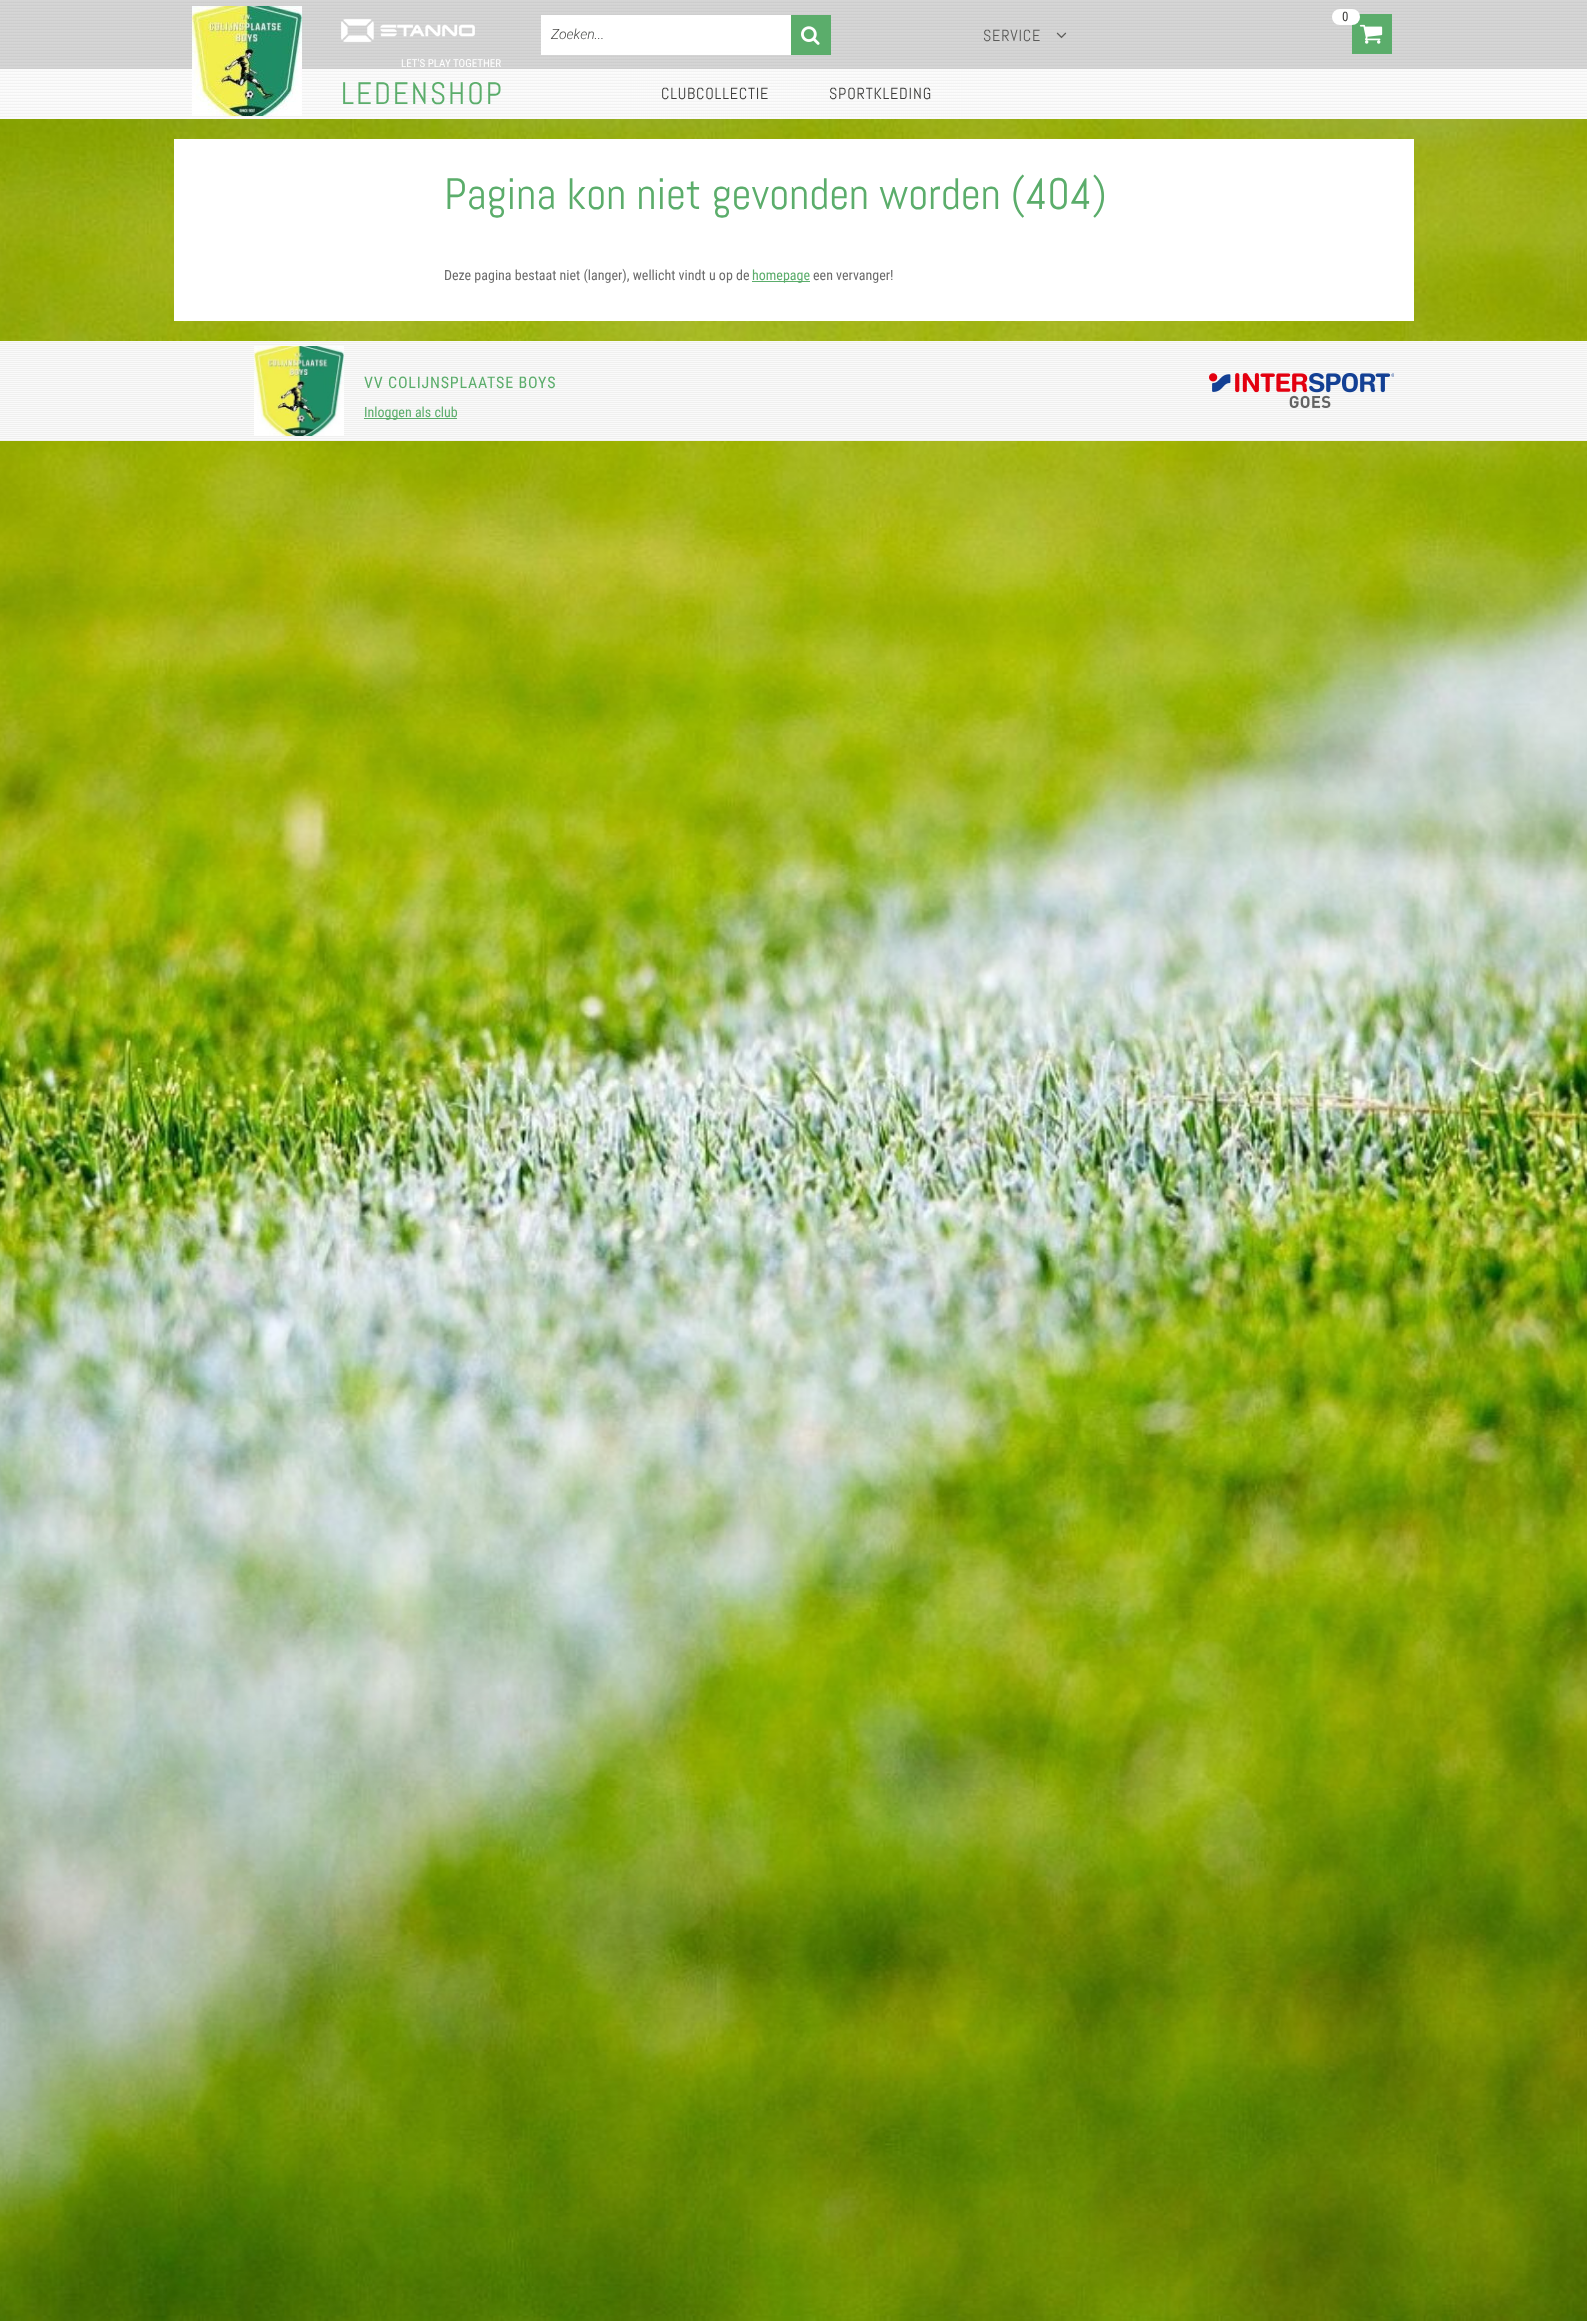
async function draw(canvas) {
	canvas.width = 1587;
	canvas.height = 2321;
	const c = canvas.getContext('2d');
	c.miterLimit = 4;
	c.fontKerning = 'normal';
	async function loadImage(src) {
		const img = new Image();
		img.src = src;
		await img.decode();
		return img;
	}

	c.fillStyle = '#fff';
	c.fillRect(0, 0, 1587, 2321);
	c.drawImage(await loadImage('img1.png'), 0, 119, 1587, 2202);
	c.drawImage(await loadImage('img2.png'), 0, 0, 1587, 69);
	c.drawImage(await loadImage('img8.png'), 0, 69, 194, 50);
	c.drawImage(await loadImage('img9.png'), 194, 69, 437, 50);
	c.drawImage(await loadImage('img3.png'), 192, 6, 110, 110);
	c.fillStyle = '#5bad6b';
	c.fillRect(1352, 14, 40, 40);
	c.drawImage(await loadImage('img4.png'), 1359, 24, 24, 20);
	c.fillStyle = '#fff';
	c.beginPath();
	c.roundRect(1332, 9, 28, 16, 8);
	c.fill();
	c.font = '13px Roboto Condensed';
	c.fillStyle = '#3d3d3b';
	c.fillText('0', 1342, 21);
	c.drawImage(await loadImage('img5.png'), 341, 19, 134, 23);
	c.fillStyle = '#fff';
	c.fillRect(541, 15, 250, 40);
	c.font = 'italic 300 14px Roboto';
	c.fillStyle = '#4b4c4a';
	c.fillText('Zoeken...', 551, 39);
	c.fillStyle = '#5bad6b';
	c.fillRect(791, 15, 40, 40);
	c.drawImage(await loadImage('img6.png'), 801, 26, 19, 19);
	c.letterSpacing = '0.8px';
	c.font = '16px Abel';
	c.fillStyle = '#5a5a58';
	c.fillText('SERVICE', 983, 41);
	c.drawImage(await loadImage('img7.png'), 1056, 32, 11, 7);
	c.letterSpacing = '0px';
	c.font = '11px Roboto Condensed';
	c.fillStyle = '#fff';
	c.fillText('LET\'S PLAY TOGETHER', 401, 67);
	c.letterSpacing = '2px';
	c.font = '31px Abel';
	c.fillStyle = '#5bad6b';
	c.fillText('LEDENSHOP', 341, 104);
	c.drawImage(await loadImage('img10.png'), 631, 69, 168, 50);
	c.letterSpacing = '0.8px';
	c.font = '16px Abel';
	c.fillStyle = '#3d3d3b';
	c.fillText('CLUBCOLLECTIE', 661, 99);
	c.drawImage(await loadImage('img11.png'), 799, 69, 163, 50);
	c.fillText('SPORTKLEDING', 829, 99);
	c.drawImage(await loadImage('img12.png'), 962, 69, 432, 50);
	c.drawImage(await loadImage('img13.png'), 1394, 69, 193, 50);
	c.fillStyle = '#fff';
	c.fillRect(174, 139, 1240, 182);
	c.letterSpacing = '0px';
	c.font = '44px Abel';
	c.fillStyle = '#5bad6b';
	c.fillText('Pagina kon niet gevonden worden (404)', 444, 209);
	c.font = '14px Roboto Condensed';
	c.fillStyle = '#6b6b6b';
	c.fillText('Deze pagina bestaat niet (langer), wellicht vindt u op de', 444, 280);
	c.fillStyle = '#5bad6b';
	c.fillRect(752, 281, 58, 1);
	c.fillText('homepage', 752, 280);
	c.fillStyle = '#6b6b6b';
	c.fillText('een vervanger!', 813, 280);
	c.drawImage(await loadImage('img14.png'), 0, 341, 1587, 100);
	c.drawImage(await loadImage('img15.png'), 254, 346, 90, 90);
	c.letterSpacing = '0.8px';
	c.font = '16px Roboto Condensed';
	c.fillStyle = '#5bad6b';
	c.fillText('VV COLIJNSPLAATSE BOYS', 364, 388);
	c.fillRect(364, 418, 93, 1);
	c.letterSpacing = '0px';
	c.font = '14px Roboto Condensed';
	c.fillText('Inloggen als club', 364, 417);
	c.drawImage(await loadImage('img16.png'), 1209, 373, 185, 35);
}

draw(document.querySelector('canvas'));
